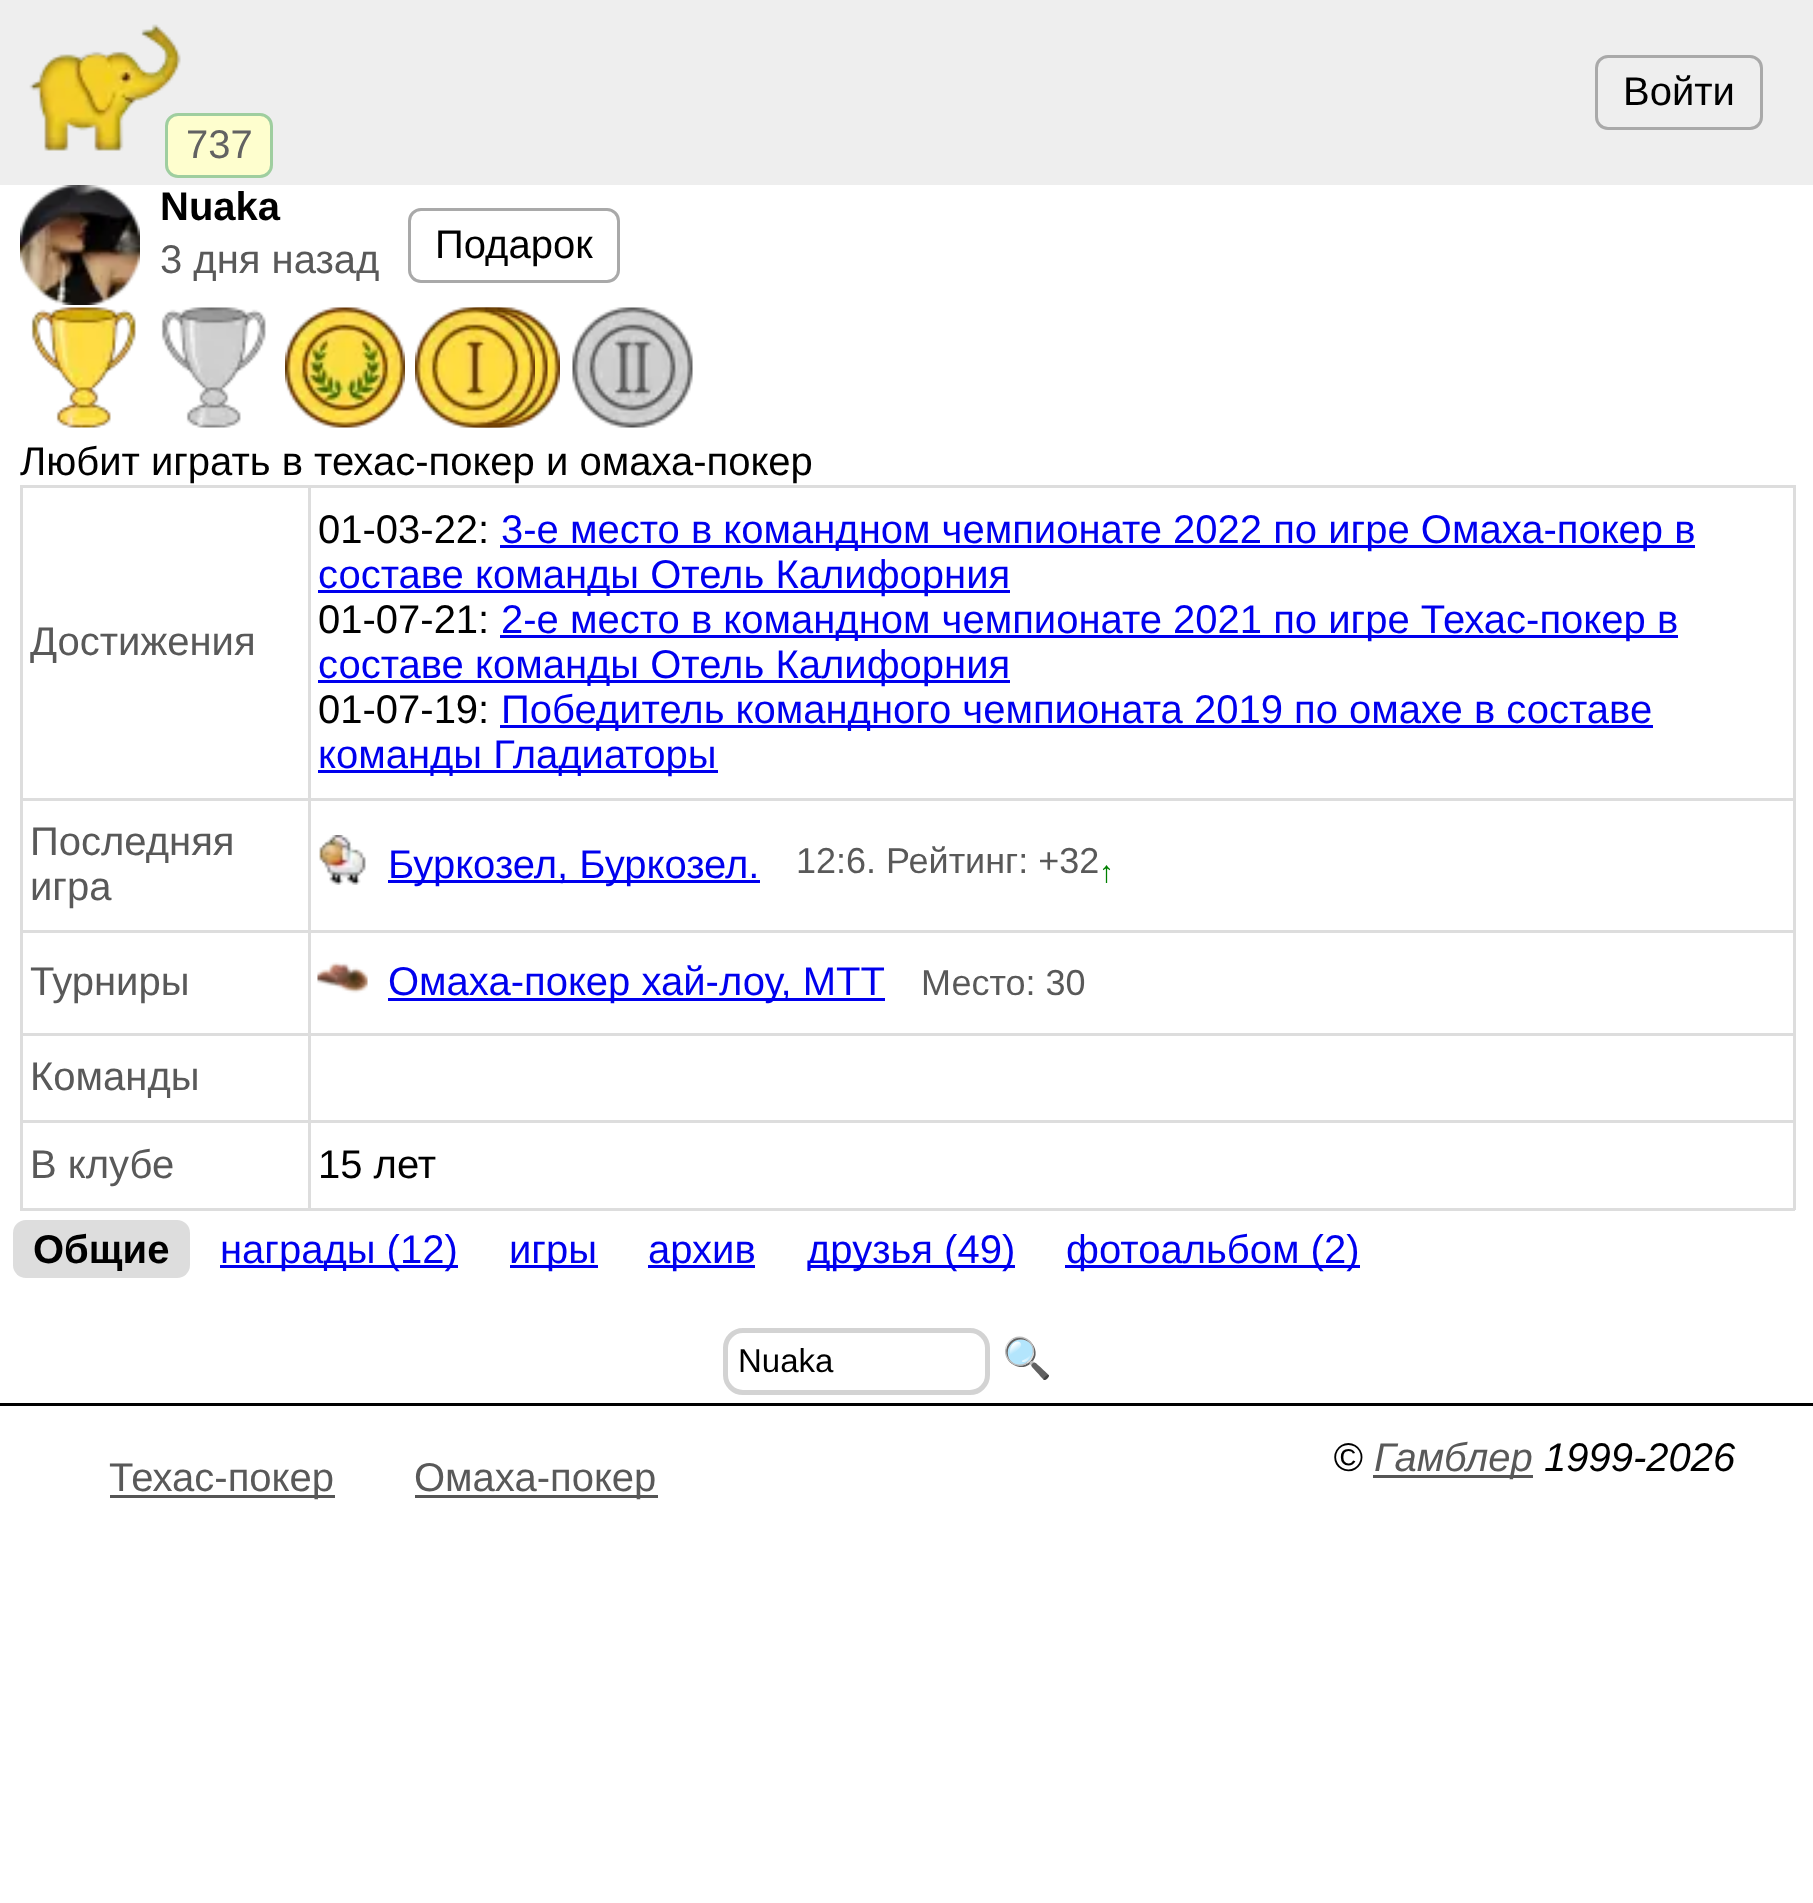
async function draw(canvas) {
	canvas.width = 1813;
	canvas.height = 1903;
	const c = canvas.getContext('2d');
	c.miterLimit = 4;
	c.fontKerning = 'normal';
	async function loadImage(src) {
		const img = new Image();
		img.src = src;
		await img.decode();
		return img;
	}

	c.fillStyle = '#fff';
	c.fillRect(0, 0, 1813, 1903);
	c.fillStyle = '#eee';
	c.fillRect(0, 0, 1813, 185);
	c.beginPath();
	c.roundRect(1596.5, 56.5, 165, 72, 11.5);
	c.strokeStyle = '#a9a9a9';
	c.lineWidth = 3;
	c.stroke();
	c.font = '40px Liberation Sans';
	c.fillStyle = '#000';
	c.fillText('Войти', 1623, 105);
	c.drawImage(await loadImage('img1.png'), 29, 24, 152, 127);
	c.fillStyle = '#fefece';
	c.beginPath();
	c.roundRect(166.5, 114.5, 105, 62, 11.5);
	c.fill();
	c.strokeStyle = '#9fce9f';
	c.stroke();
	c.fillStyle = '#626262';
	c.fillText('737', 186, 158);
	c.drawImage(await loadImage('img2.png'), 20, 185, 120, 120);
	c.font = 'bold 40px Liberation Sans';
	c.fillStyle = '#000';
	c.fillText('Nuaka', 160, 220);
	c.font = '40px Liberation Sans';
	c.fillStyle = '#595959';
	c.fillText('3 дня назад', 160, 273);
	c.beginPath();
	c.roundRect(409.5, 209.5, 209, 72, 11.5);
	c.strokeStyle = '#a9a9a9';
	c.stroke();
	c.fillStyle = '#000';
	c.fillText('Подарок', 435, 258);
	c.drawImage(await loadImage('img3.png'), 31, 307, 105, 121);
	c.drawImage(await loadImage('img4.png'), 161, 307, 105, 121);
	c.drawImage(await loadImage('img5.png'), 285, 307, 120, 121);
	c.drawImage(await loadImage('img8.png'), 475, 307, 85, 121);
	c.drawImage(await loadImage('img7.png'), 457, 307, 91, 121);
	c.drawImage(await loadImage('img6.png'), 415, 307, 120, 121);
	c.drawImage(await loadImage('img9.png'), 572, 307, 121, 121);
	c.fillText('Любит играть в техас-покер и омаха-покер', 20, 475);
	for (const [x, y, w, h, color] of [
		[20, 485, 1775, 3, '#ddd'],
		[1793, 485, 3, 725, '#ddd'],
		[20, 1208, 1775, 3, '#ddd'],
		[20, 485, 3, 725, '#ddd'],
	]) {
		c.fillStyle = color;
		c.fillRect(x, y, w, h);
	}
	c.fillStyle = '#595959';
	c.fillText('Достижения', 30, 655);
	for (const [x, y, w, h, color] of [
		[308, 798, 1487, 3, '#ddd'],
		[308, 930, 1487, 3, '#ddd'],
		[308, 1033, 1487, 3, '#ddd'],
		[308, 1120, 1487, 3, '#ddd'],
		[308, 1120, 3, 90, '#ddd'],
		[20, 1120, 290, 3, '#ddd'],
		[308, 1033, 3, 90, '#ddd'],
		[20, 1033, 290, 3, '#ddd'],
		[308, 930, 3, 105, '#ddd'],
		[20, 930, 290, 3, '#ddd'],
		[308, 798, 3, 135, '#ddd'],
		[20, 798, 290, 3, '#ddd'],
		[308, 485, 3, 315, '#ddd'],
	]) {
		c.fillStyle = color;
		c.fillRect(x, y, w, h);
	}
	c.fillStyle = '#000';
	c.fillText('01-03-22:', 318, 543);
	c.fillStyle = '#00e';
	c.fillRect(500, 545, 1195, 3);
	c.fillText('3-е место в командном чемпионате 2022 по игре Омаха-покер в', 501, 543);
	c.fillRect(318, 590, 692, 3);
	c.fillText('составе команды Отель Калифорния', 318, 588);
	c.fillStyle = '#000';
	c.fillText('01-07-21:', 318, 633);
	c.fillStyle = '#00e';
	c.fillRect(500, 635, 1178, 3);
	c.fillText('2-е место в командном чемпионате 2021 по игре Техас-покер в', 501, 633);
	c.fillRect(318, 680, 692, 3);
	c.fillText('составе команды Отель Калифорния', 318, 678);
	c.fillStyle = '#000';
	c.fillText('01-07-19:', 318, 723);
	c.fillStyle = '#00e';
	c.fillRect(500, 725, 1153, 3);
	c.fillText('Победитель командного чемпионата 2019 по омахе в составе', 501, 723);
	c.fillRect(318, 770, 400, 3);
	c.fillText('команды Гладиаторы', 318, 768);
	c.fillStyle = '#595959';
	c.fillText('Последняя', 30, 855);
	c.fillText('игра', 30, 900);
	c.drawImage(await loadImage('img10.png'), 319, 835, 47, 50);
	c.fillStyle = '#00e';
	c.fillRect(388, 880, 372, 3);
	c.fillText('Буркозел, Буркозел.', 388, 878);
	c.font = '36px Liberation Sans';
	c.fillStyle = '#595959';
	c.fillText('12:6. Рейтинг: +32', 796, 873);
	c.font = '30px Liberation Sans';
	c.fillStyle = '#008000';
	c.fillText('↑', 1099, 882);
	c.font = '40px Liberation Sans';
	c.fillStyle = '#595959';
	c.fillText('Турниры', 30, 995);
	c.drawImage(await loadImage('img11.png'), 317, 962, 51, 32);
	c.fillStyle = '#00e';
	c.fillRect(388, 998, 497, 3);
	c.fillText('Омаха-покер хай-лоу, МТТ', 388, 995);
	c.font = '36px Liberation Sans';
	c.fillStyle = '#595959';
	c.fillText('Место: 30', 921, 995);
	c.font = '40px Liberation Sans';
	c.fillText('Команды', 30, 1090);
	c.fillText('В клубе', 30, 1178);
	c.fillStyle = '#000';
	c.fillText('15 лет', 318, 1178);
	c.fillStyle = '#ddd';
	c.beginPath();
	c.roundRect(13, 1220, 177, 58, 13);
	c.fill();
	c.font = 'bold 40px Liberation Sans';
	c.fillStyle = '#000';
	c.fillText('Общие', 33, 1263);
	c.fillStyle = '#00e';
	c.fillRect(220, 1265, 238, 3);
	c.font = '40px Liberation Sans';
	c.fillText('награды (12)', 220, 1263);
	c.fillRect(510, 1265, 88, 3);
	c.fillText('игры', 509, 1263);
	c.fillRect(648, 1265, 107, 3);
	c.fillText('архив', 648, 1263);
	c.fillRect(808, 1265, 207, 3);
	c.fillText('друзья (49)', 807, 1263);
	c.fillRect(1065, 1265, 295, 3);
	c.fillText('фотоальбом (2)', 1066, 1263);
	c.beginPath();
	c.roundRect(725.5, 1330.5, 262, 62, 17.5);
	c.strokeStyle = '#d3d3d3';
	c.lineWidth = 5;
	c.stroke();
	c.font = '33px Liberation Sans';
	c.fillStyle = '#000';
	c.fillText('Nuaka', 738, 1372);
	c.font = '40px Noto Color Emoji';
	c.fillText('🔍', 1002, 1372);
	c.fillRect(0, 1403, 1813, 3);
	c.fillStyle = '#555';
	c.fillRect(110, 1495, 225, 3);
	c.font = '40px Liberation Sans';
	c.fillStyle = '#595959';
	c.fillText('Техас-покер', 109, 1491);
	c.fillStyle = '#555';
	c.fillRect(415, 1495, 243, 3);
	c.fillStyle = '#595959';
	c.fillText('Омаха-покер', 414, 1491);
	c.font = 'italic 40px Liberation Sans';
	c.fillStyle = '#000';
	c.fillText('©', 1333, 1471);
	c.fillStyle = '#555';
	c.fillRect(1373, 1475, 160, 3);
	c.fillStyle = '#595959';
	c.fillText('Гамблер', 1374, 1471);
	c.fillStyle = '#000';
	c.fillText('1999-2026', 1544, 1471);
}

draw(document.querySelector('canvas'));
